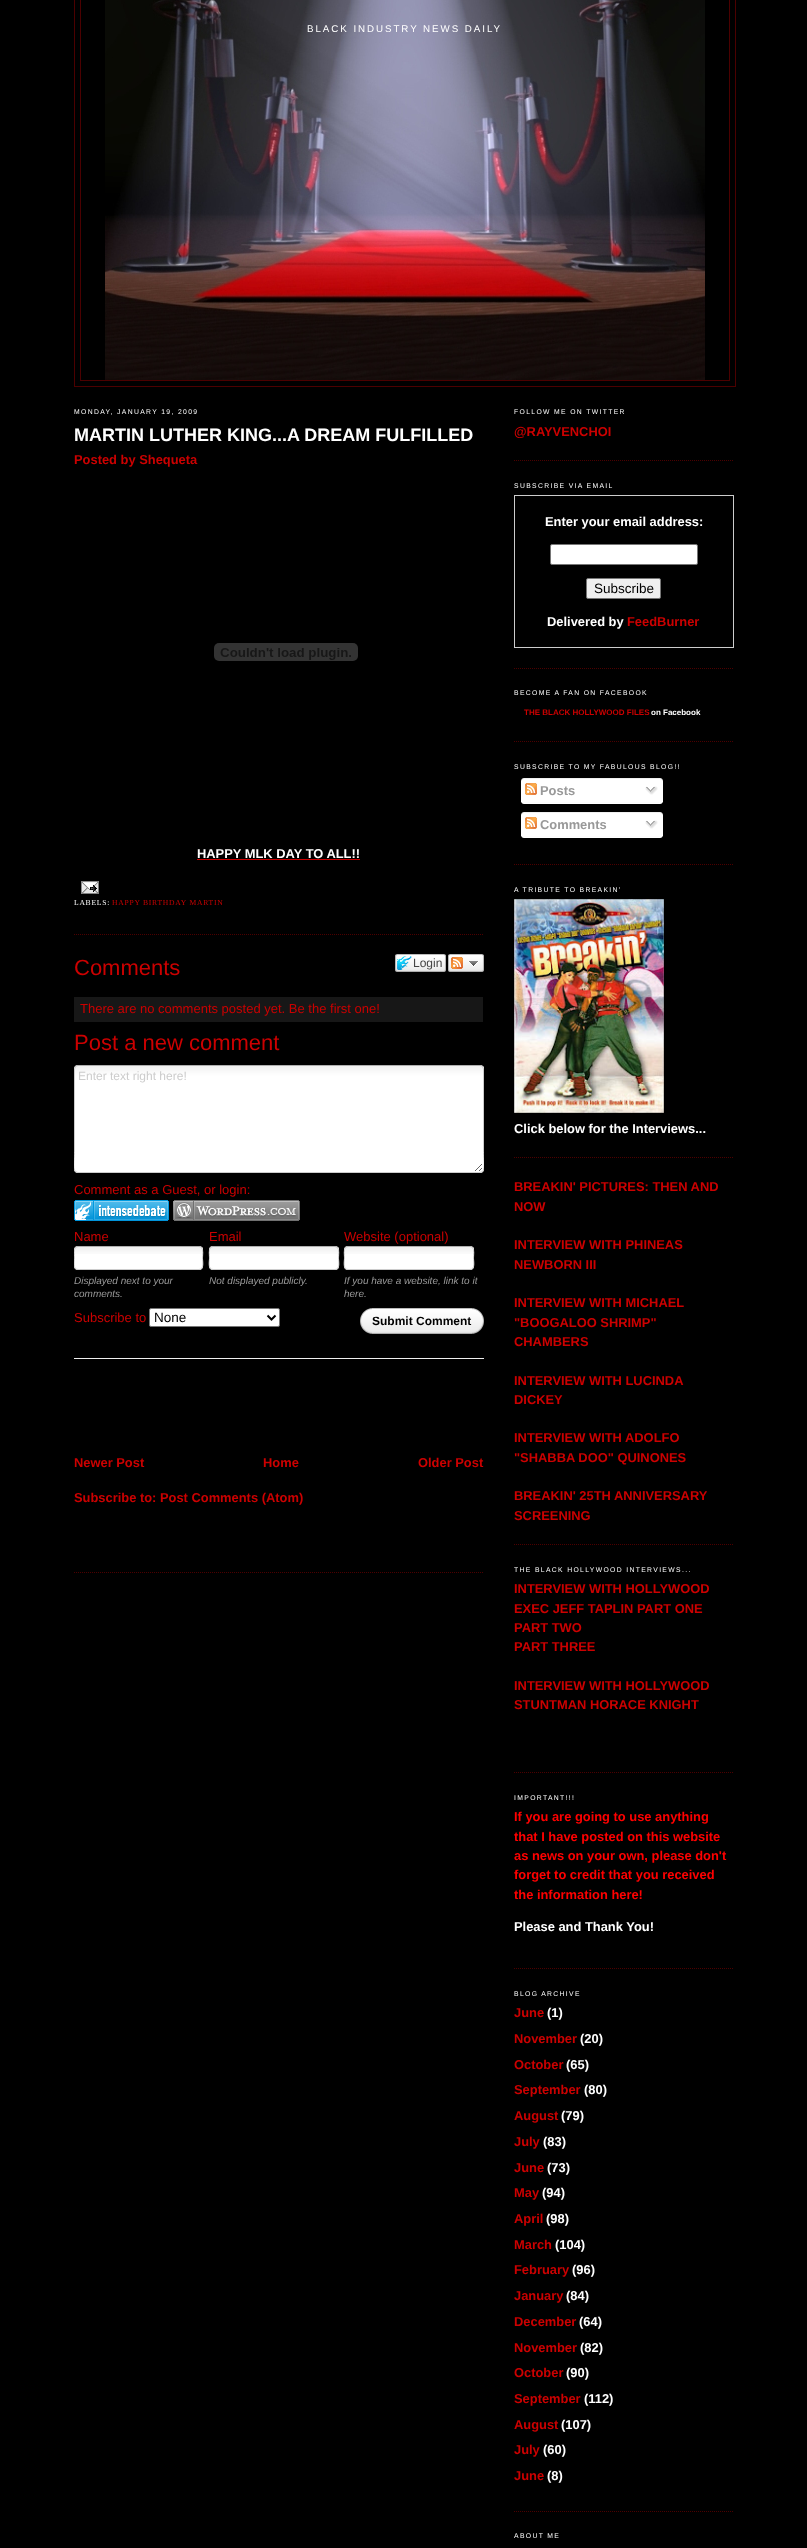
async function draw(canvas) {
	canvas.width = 807;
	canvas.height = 2548;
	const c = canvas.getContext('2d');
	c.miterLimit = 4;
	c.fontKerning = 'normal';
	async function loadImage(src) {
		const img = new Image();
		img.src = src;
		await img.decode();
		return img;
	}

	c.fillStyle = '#000';
	c.fillRect(0, 0, 807, 2548);
	c.strokeStyle = '#4c0000';
	c.strokeRect(74.5, -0.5, 661, 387);
	c.strokeRect(80.5, -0.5, 649, 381);
	c.drawImage(await loadImage('img1.png'), 105, 0, 600, 380);
	c.letterSpacing = '1.95px';
	c.font = '9.75px Liberation Sans';
	c.fillStyle = '#fff';
	c.fillText('BLACK INDUSTRY NEWS DAILY', 307, 32);
	c.letterSpacing = '1.35px';
	c.font = '6.8px Liberation Sans';
	c.fillText('MONDAY, JANUARY 19, 2009', 74, 414);
	c.beginPath();
	c.moveTo(74, 934.5);
	c.lineTo(484, 934.5);
	c.setLineDash([1, 1]);
	c.stroke();
	c.letterSpacing = '0px';
	c.font = 'bold 18px Liberation Sans';
	c.fillText('MARTIN LUTHER KING...A DREAM FULFILLED', 74, 441);
	c.font = 'bold 12.9px Liberation Sans';
	c.fillStyle = '#c00';
	c.fillText('Posted by Shequeta', 74, 464);
	c.drawImage(await loadImage('img2.png'), 214, 643, 144, 18);
	c.fillStyle = '#fff';
	c.fillText('HAPPY MLK DAY TO ALL!!', 197, 858);
	c.fillStyle = '#c00';
	c.fillRect(197, 859, 163, 1);
	c.drawImage(await loadImage('img3.png'), 81, 881, 18, 13);
	c.letterSpacing = '0.75px';
	c.font = '7.6px Liberation Serif';
	c.fillStyle = '#fff';
	c.fillText('LABELS:', 74, 905);
	c.fillStyle = '#c00';
	c.fillText('HAPPY BIRTHDAY MARTIN', 112, 905);
	c.letterSpacing = '0px';
	c.font = '22px Liberation Sans';
	c.fillText('Comments', 74, 975);
	c.drawImage(await loadImage('img4.png'), 395, 954, 48, 18);
	c.font = '12px Liberation Sans';
	c.fillStyle = '#444';
	c.fillText('Login', 413, 967);
	c.drawImage(await loadImage('img5.png'), 443, 954, 3, 18);
	c.drawImage(await loadImage('img6.png'), 448, 954, 36, 18);
	c.fillStyle = '#171717';
	c.fillRect(74, 997, 409, 25);
	c.font = '13px Liberation Sans';
	c.fillStyle = '#c00';
	c.fillText('There are no comments posted yet. Be the first one!', 80, 1013);
	c.font = '22px Liberation Sans';
	c.fillText('Post a new comment', 74, 1050);
	c.fillStyle = '#fff';
	c.beginPath();
	c.roundRect(74, 1065, 410, 108, 4);
	c.fill();
	c.drawImage(await loadImage('img7.png'), 75, 1066, 409, 105);
	c.beginPath();
	c.moveTo(75.5, 1066.5);
	c.bezierCurveTo(76, 1066, 77, 1065.5, 78, 1065.5);
	c.lineTo(480, 1065.5);
	c.bezierCurveTo(481, 1065.5, 482, 1066, 482.5, 1066.5);
	c.strokeStyle = '#b0b0b0';
	c.setLineDash([]);
	c.stroke();
	c.save();
	c.beginPath();
	c.rect(74, 1065, 410, 112);
	c.clip();
	c.beginPath();
	c.moveTo(482.5, 1066.5);
	c.lineTo(483.5, 1069);
	c.lineTo(483.5, 1152.5);
	c.bezierCurveTo(483.5, 1159, 486.5, 1172.5, 480, 1172.5);
	c.lineTo(78, 1172.5);
	c.bezierCurveTo(71.5, 1172.5, 74.5, 1159, 74.5, 1152.5);
	c.lineTo(74.5, 1069);
	c.lineTo(75.5, 1066.5);
	c.strokeStyle = '#ccc';
	c.stroke();
	c.restore();
	c.font = '12px Liberation Sans';
	c.fillStyle = '#ccc';
	c.fillText('Enter text right here!', 78, 1080);
	c.font = '13px Liberation Sans';
	c.fillStyle = '#c00';
	c.fillText('Comment as a Guest, or login:', 74, 1194);
	c.drawImage(await loadImage('img8.png'), 74, 1200, 95, 21);
	c.drawImage(await loadImage('img9.png'), 173, 1200, 127, 21);
	for (const [text, x, y] of [
		['Name', 74, 1241],
		['Email', 209, 1241],
		['Website (optional)', 344, 1241],
	]) {
		c.fillText(text, x, y);
	}
	c.fillStyle = '#fff';
	c.beginPath();
	c.roundRect(74, 1246, 129, 24, 4);
	c.fill();
	c.drawImage(await loadImage('img10.png'), 75, 1247, 128, 7);
	c.beginPath();
	c.moveTo(75.5, 1247.5);
	c.bezierCurveTo(76, 1247, 77, 1246.5, 78, 1246.5);
	c.lineTo(199, 1246.5);
	c.bezierCurveTo(200, 1246.5, 201, 1247, 201.5, 1247.5);
	c.stroke();
	c.save();
	c.beginPath();
	c.rect(74, 397, 410, 1196);
	c.clip();
	c.beginPath();
	c.moveTo(201.5, 1247.5);
	c.bezierCurveTo(203.5, 1249.5, 202.5, 1255.5, 202.5, 1258);
	c.bezierCurveTo(202.5, 1261, 204.5, 1269.5, 199, 1269.5);
	c.lineTo(78, 1269.5);
	c.bezierCurveTo(72.5, 1269.5, 74.5, 1261, 74.5, 1258);
	c.bezierCurveTo(74.5, 1255.5, 73.5, 1249.5, 75.5, 1247.5);
	c.strokeStyle = '#ccc';
	c.stroke();
	c.restore();
	c.font = 'italic 10px Liberation Sans';
	c.fillStyle = '#999';
	c.fillText('Displayed next to your', 74, 1284);
	c.fillText('comments.', 74, 1297);
	c.fillStyle = '#fff';
	c.beginPath();
	c.roundRect(209, 1246, 130, 24, 4);
	c.fill();
	c.drawImage(await loadImage('img11.png'), 210, 1247, 129, 7);
	c.beginPath();
	c.moveTo(210.5, 1247.5);
	c.bezierCurveTo(211, 1247, 212, 1246.5, 213, 1246.5);
	c.lineTo(335, 1246.5);
	c.bezierCurveTo(336, 1246.5, 337, 1247, 337.5, 1247.5);
	c.stroke();
	c.beginPath();
	c.moveTo(337.5, 1247.5);
	c.bezierCurveTo(339.5, 1249.5, 338.5, 1255.5, 338.5, 1258);
	c.bezierCurveTo(338.5, 1261, 340.5, 1269.5, 335, 1269.5);
	c.lineTo(213, 1269.5);
	c.bezierCurveTo(207.5, 1269.5, 209.5, 1261, 209.5, 1258);
	c.bezierCurveTo(209.5, 1255.5, 208.5, 1249.5, 210.5, 1247.5);
	c.strokeStyle = '#ccc';
	c.stroke();
	c.fillStyle = '#999';
	c.fillText('Not displayed publicly.', 209, 1284);
	c.fillStyle = '#fff';
	c.beginPath();
	c.roundRect(344, 1246, 130, 24, 4);
	c.fill();
	c.drawImage(await loadImage('img11.png'), 345, 1247, 129, 7);
	c.beginPath();
	c.moveTo(345.5, 1247.5);
	c.bezierCurveTo(346, 1247, 347, 1246.5, 348, 1246.5);
	c.lineTo(470, 1246.5);
	c.bezierCurveTo(471, 1246.5, 472, 1247, 472.5, 1247.5);
	c.strokeStyle = '#b0b0b0';
	c.stroke();
	c.beginPath();
	c.moveTo(472.5, 1247.5);
	c.bezierCurveTo(474.5, 1249.5, 473.5, 1255.5, 473.5, 1258);
	c.bezierCurveTo(473.5, 1261, 475.5, 1269.5, 470, 1269.5);
	c.lineTo(348, 1269.5);
	c.bezierCurveTo(342.5, 1269.5, 344.5, 1261, 344.5, 1258);
	c.bezierCurveTo(344.5, 1255.5, 343.5, 1249.5, 345.5, 1247.5);
	c.strokeStyle = '#ccc';
	c.stroke();
	c.fillStyle = '#999';
	c.fillText('If you have a website, link to it', 344, 1284);
	c.fillText('here.', 344, 1297);
	c.font = '13px Liberation Sans';
	c.fillStyle = '#c00';
	c.fillText('Subscribe to', 74, 1322);
	c.fillStyle = '#fff';
	c.beginPath();
	c.roundRect(149.5, 1308.5, 130, 18, 1.5);
	c.fill();
	c.strokeStyle = '#767676';
	c.stroke();
	c.beginPath();
	c.moveTo(267.5, 1315.5);
	c.lineTo(271.5, 1319.5);
	c.lineTo(275.5, 1315.5);
	c.strokeStyle = '#000';
	c.lineWidth = 2;
	c.stroke();
	c.font = '13.5px Liberation Sans';
	c.fillStyle = '#000';
	c.fillText('None', 154, 1322);
	c.drawImage(await loadImage('img12.png'), 360, 1308, 12, 26);
	c.drawImage(await loadImage('img13.png'), 372, 1308, 112, 26);
	c.font = 'bold 12px Liberation Sans';
	c.fillText('Submit Comment', 372, 1325);
	c.fillStyle = '#eee';
	c.fillRect(74, 1358, 410, 1);
	c.font = 'bold 12.9px Liberation Sans';
	c.fillStyle = '#c00';
	for (const [text, x, y] of [
		['Newer Post', 74, 1467],
		['Home', 263, 1467],
		['Older Post', 418, 1467],
		['Subscribe to: Post Comments (Atom)', 74, 1502],
	]) {
		c.fillText(text, x, y);
	}
	c.beginPath();
	c.moveTo(74, 1572.5);
	c.lineTo(484, 1572.5);
	c.strokeStyle = '#4c0000';
	c.lineWidth = 1;
	c.setLineDash([1, 1]);
	c.stroke();
	c.beginPath();
	c.moveTo(514, 460.5);
	c.lineTo(734, 460.5);
	c.stroke();
	c.letterSpacing = '1.35px';
	c.font = '6.8px Liberation Sans';
	c.fillStyle = '#fff';
	c.fillText('FOLLOW ME ON TWITTER', 514, 414);
	c.letterSpacing = '0px';
	c.font = 'bold 12.9px Liberation Sans';
	c.fillStyle = '#c00';
	c.fillText('@RAYVENCHOI', 514, 436);
	c.beginPath();
	c.moveTo(514, 668.5);
	c.lineTo(734, 668.5);
	c.stroke();
	c.letterSpacing = '1.35px';
	c.font = '6.8px Liberation Sans';
	c.fillStyle = '#fff';
	c.fillText('SUBSCRIBE VIA EMAIL', 514, 488);
	c.strokeStyle = '#ccc';
	c.setLineDash([]);
	c.strokeRect(514.5, 495.5, 219, 152);
	c.letterSpacing = '0px';
	c.font = 'bold 12.9px Liberation Sans';
	c.fillText('Enter your email address:', 545, 526);
	c.beginPath();
	c.roundRect(550.5, 544.5, 147, 20, 1.5);
	c.fill();
	c.strokeStyle = '#767676';
	c.stroke();
	c.fillStyle = '#efefef';
	c.beginPath();
	c.roundRect(586.5, 578.5, 74, 20, 1.5);
	c.fill();
	c.stroke();
	c.font = '13.5px Liberation Sans';
	c.fillStyle = '#000';
	c.fillText('Subscribe', 594, 593);
	c.font = 'bold 12.9px Liberation Sans';
	c.fillStyle = '#fff';
	c.fillText('Delivered by', 547, 626);
	c.fillStyle = '#c00';
	c.fillText('FeedBurner', 627, 626);
	c.beginPath();
	c.moveTo(514, 741.5);
	c.lineTo(734, 741.5);
	c.strokeStyle = '#4c0000';
	c.setLineDash([1, 1]);
	c.stroke();
	c.letterSpacing = '1.35px';
	c.font = '6.8px Liberation Sans';
	c.fillStyle = '#fff';
	c.fillText('BECOME A FAN ON FACEBOOK', 514, 695);
	c.letterSpacing = '0px';
	c.font = 'bold 8px Liberation Sans';
	c.fillStyle = '#c00';
	c.fillText('THE BLACK HOLLYWOOD FILES', 524, 715);
	c.fillStyle = '#fff';
	c.fillText('on Facebook', 651, 715);
	c.beginPath();
	c.moveTo(514, 864.5);
	c.lineTo(734, 864.5);
	c.stroke();
	c.letterSpacing = '1.35px';
	c.font = '6.8px Liberation Sans';
	c.fillText('SUBSCRIBE TO MY FABULOUS BLOG!!', 514, 769);
	c.drawImage(await loadImage('img14.png'), 521, 778, 142, 24);
	c.drawImage(await loadImage('img15.png'), 525, 783, 12, 12);
	c.letterSpacing = '0px';
	c.font = 'bold 12.9px Liberation Sans';
	c.fillStyle = '#999';
	c.fillText('Posts', 540, 795);
	c.drawImage(await loadImage('img16.png'), 645, 786, 13, 9);
	c.drawImage(await loadImage('img17.png'), 521, 802, 142, 2);
	c.drawImage(await loadImage('img14.png'), 521, 812, 142, 24);
	c.drawImage(await loadImage('img15.png'), 525, 817, 12, 12);
	c.fillText('Comments', 540, 829);
	c.drawImage(await loadImage('img16.png'), 645, 820, 13, 9);
	c.drawImage(await loadImage('img17.png'), 521, 836, 142, 2);
	c.beginPath();
	c.moveTo(514, 1157.5);
	c.lineTo(734, 1157.5);
	c.stroke();
	c.letterSpacing = '1.35px';
	c.font = '6.8px Liberation Sans';
	c.fillStyle = '#fff';
	c.fillText('A TRIBUTE TO BREAKIN\'', 514, 892);
	c.drawImage(await loadImage('img18.png'), 514, 899, 150, 214);
	c.letterSpacing = '0px';
	c.font = 'bold 12.9px Liberation Sans';
	c.fillText('Click below for the Interviews...', 514, 1133);
	c.beginPath();
	c.moveTo(514, 1544.5);
	c.lineTo(734, 1544.5);
	c.stroke();
	c.fillStyle = '#c00';
	for (const [text, x, y] of [
		['BREAKIN\' PICTURES: THEN AND', 514, 1191],
		['NOW', 514, 1211],
		['INTERVIEW WITH PHINEAS', 514, 1249],
		['NEWBORN III', 514, 1269],
		['INTERVIEW WITH MICHAEL', 514, 1307],
		['"BOOGALOO SHRIMP"', 514, 1327],
		['CHAMBERS', 514, 1346],
		['INTERVIEW WITH LUCINDA', 514, 1385],
		['DICKEY', 514, 1404],
		['INTERVIEW WITH ADOLFO', 514, 1442],
		['"SHABBA DOO" QUINONES', 514, 1462],
		['BREAKIN\' 25TH ANNIVERSARY', 514, 1500],
		['SCREENING', 514, 1520],
	]) {
		c.fillText(text, x, y);
	}
	c.beginPath();
	c.moveTo(514, 1772.5);
	c.lineTo(734, 1772.5);
	c.stroke();
	c.letterSpacing = '1.35px';
	c.font = '6.8px Liberation Sans';
	c.fillStyle = '#fff';
	c.fillText('THE BLACK HOLLYWOOD INTERVIEWS...', 514, 1572);
	c.letterSpacing = '0px';
	c.font = 'bold 12.9px Liberation Sans';
	c.fillStyle = '#c00';
	for (const [text, x, y] of [
		['INTERVIEW WITH HOLLYWOOD', 514, 1593],
		['EXEC JEFF TAPLIN PART ONE', 514, 1613],
		['PART TWO', 514, 1632],
		['PART THREE', 514, 1651],
		['INTERVIEW WITH HOLLYWOOD', 514, 1690],
		['STUNTMAN HORACE KNIGHT', 514, 1709],
	]) {
		c.fillText(text, x, y);
	}
	c.beginPath();
	c.moveTo(514, 1968.5);
	c.lineTo(734, 1968.5);
	c.stroke();
	c.letterSpacing = '1.35px';
	c.font = '6.8px Liberation Sans';
	c.fillStyle = '#fff';
	c.fillText('IMPORTANT!!!', 514, 1800);
	c.letterSpacing = '0px';
	c.font = 'bold 12.9px Liberation Sans';
	c.fillStyle = '#f00';
	for (const [text, x, y] of [
		['If you are going to use anything', 514, 1821],
		['that I have posted on this website', 514, 1841],
		['as news on your own, please don\'t', 514, 1860],
		['forget to credit that you received', 514, 1879],
		['the information here!', 514, 1899],
	]) {
		c.fillText(text, x, y);
	}
	c.fillStyle = '#fff';
	c.fillText('Please and Thank You!', 514, 1931);
	c.beginPath();
	c.moveTo(514, 2511.5);
	c.lineTo(734, 2511.5);
	c.stroke();
	c.letterSpacing = '1.35px';
	c.font = '6.8px Liberation Sans';
	c.fillText('BLOG ARCHIVE', 514, 1996);
	c.letterSpacing = '0px';
	c.font = 'bold 12.9px Liberation Sans';
	c.fillStyle = '#c00';
	c.fillText('June', 514, 2017);
	c.fillStyle = '#fff';
	c.fillText('(1)', 547, 2017);
	c.fillStyle = '#c00';
	c.fillText('November', 514, 2043);
	c.fillStyle = '#fff';
	c.fillText('(20)', 580, 2043);
	c.fillStyle = '#c00';
	c.fillText('October', 514, 2069);
	c.fillStyle = '#fff';
	c.fillText('(65)', 566, 2069);
	c.fillStyle = '#c00';
	c.fillText('September', 514, 2094);
	c.fillStyle = '#fff';
	c.fillText('(80)', 584, 2094);
	c.fillStyle = '#c00';
	c.fillText('August', 514, 2120);
	c.fillStyle = '#fff';
	c.fillText('(79)', 561, 2120);
	c.fillStyle = '#c00';
	c.fillText('July', 514, 2146);
	c.fillStyle = '#fff';
	c.fillText('(83)', 543, 2146);
	c.fillStyle = '#c00';
	c.fillText('June', 514, 2172);
	c.fillStyle = '#fff';
	c.fillText('(73)', 547, 2172);
	c.fillStyle = '#c00';
	c.fillText('May', 514, 2197);
	c.fillStyle = '#fff';
	c.fillText('(94)', 542, 2197);
	c.fillStyle = '#c00';
	c.fillText('April', 514, 2223);
	c.fillStyle = '#fff';
	c.fillText('(98)', 546, 2223);
	c.fillStyle = '#c00';
	c.fillText('March', 514, 2249);
	c.fillStyle = '#fff';
	c.fillText('(104)', 555, 2249);
	c.fillStyle = '#c00';
	c.fillText('February', 514, 2274);
	c.fillStyle = '#fff';
	c.fillText('(96)', 572, 2274);
	c.fillStyle = '#c00';
	c.fillText('January', 514, 2300);
	c.fillStyle = '#fff';
	c.fillText('(84)', 566, 2300);
	c.fillStyle = '#c00';
	c.fillText('December', 514, 2326);
	c.fillStyle = '#fff';
	c.fillText('(64)', 579, 2326);
	c.fillStyle = '#c00';
	c.fillText('November', 514, 2352);
	c.fillStyle = '#fff';
	c.fillText('(82)', 580, 2352);
	c.fillStyle = '#c00';
	c.fillText('October', 514, 2377);
	c.fillStyle = '#fff';
	c.fillText('(90)', 566, 2377);
	c.fillStyle = '#c00';
	c.fillText('September', 514, 2403);
	c.fillStyle = '#fff';
	c.fillText('(112)', 584, 2403);
	c.fillStyle = '#c00';
	c.fillText('August', 514, 2429);
	c.fillStyle = '#fff';
	c.fillText('(107)', 561, 2429);
	c.fillStyle = '#c00';
	c.fillText('July', 514, 2454);
	c.fillStyle = '#fff';
	c.fillText('(60)', 543, 2454);
	c.fillStyle = '#c00';
	c.fillText('June', 514, 2480);
	c.fillStyle = '#fff';
	c.fillText('(8)', 547, 2480);
	c.letterSpacing = '1.35px';
	c.font = '6.8px Liberation Sans';
	c.fillText('ABOUT ME', 514, 2538);
}

draw(document.querySelector('canvas'));
